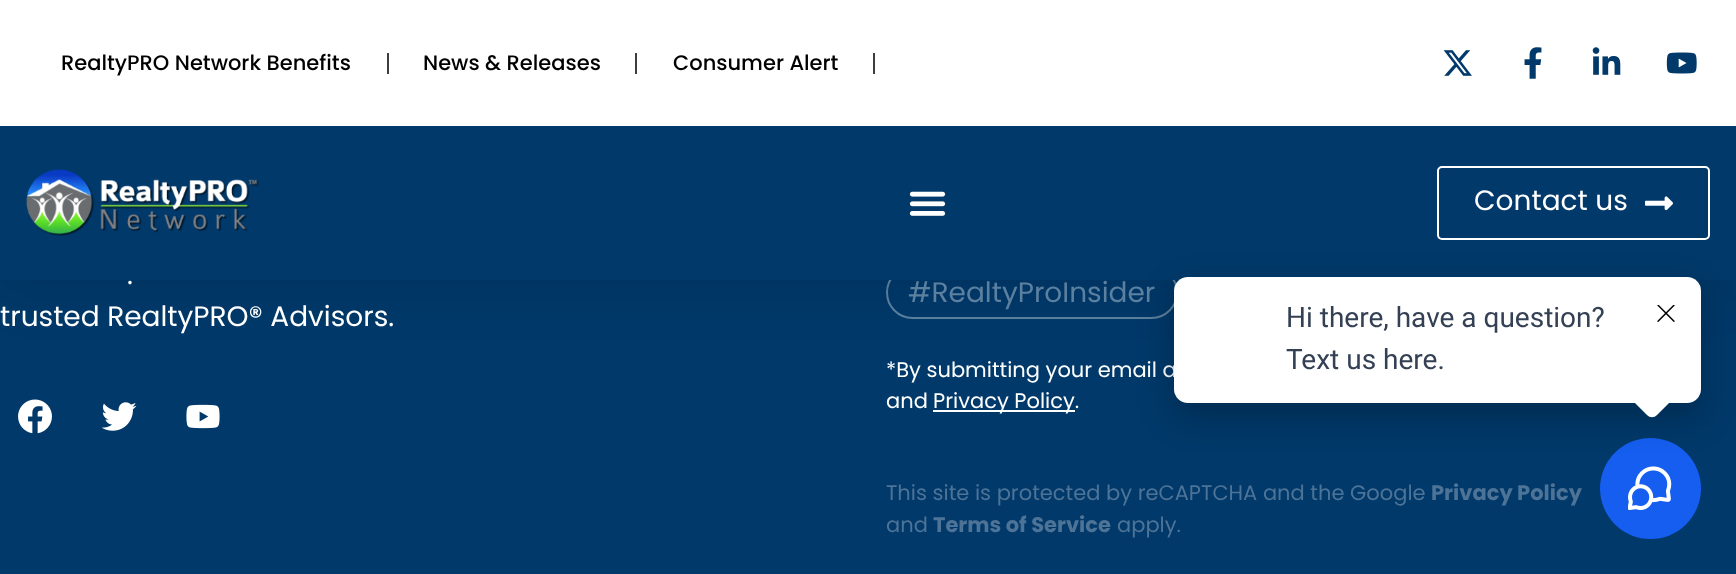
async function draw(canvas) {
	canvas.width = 1736;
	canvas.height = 574;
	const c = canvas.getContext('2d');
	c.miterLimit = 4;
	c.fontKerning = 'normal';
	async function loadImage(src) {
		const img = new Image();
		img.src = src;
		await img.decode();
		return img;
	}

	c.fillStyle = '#00396a';
	c.fillRect(0, 0, 1736, 574);
	c.beginPath();
	c.roundRect(887, 267, 290, 51, 25.5);
	c.strokeStyle = '#5c80a0';
	c.lineWidth = 2;
	c.stroke();
	c.fillStyle = '#0000001a';
	c.filter = 'blur(26px)';
	c.beginPath();
	c.rect(0, 9, 1736, 280);
	c.fill();
	c.filter = 'none';
	c.fillStyle = '#fff';
	c.fillRect(0, 0, 1736, 126);
	c.fillStyle = '#3d3d3d';
	c.fillRect(387, 53, 2, 21);
	c.font = '500 21px Poppins';
	c.fillStyle = '#000';
	c.fillText('RealtyPRO Network Benefits', 61, 70);
	c.fillStyle = '#3d3d3d';
	c.fillRect(635, 53, 2, 21);
	c.fillStyle = '#000';
	c.fillText('News & Releases', 423, 70);
	c.fillStyle = '#3d3d3d';
	c.fillRect(873, 53, 2, 21);
	c.fillStyle = '#000';
	c.fillText('Consumer Alert', 673, 70);
	c.drawImage(await loadImage('img1.png'), 1443, 50, 29, 26);
	c.drawImage(await loadImage('img2.png'), 1524, 47, 18, 32);
	c.drawImage(await loadImage('img3.png'), 1592, 47, 29, 28);
	c.drawImage(await loadImage('img4.png'), 1666, 52, 31, 22);
	c.fillStyle = '#00396a';
	c.fillRect(0, 126, 1736, 154);
	c.drawImage(await loadImage('img5.png'), 26, 169, 233, 67);
	c.drawImage(await loadImage('img6.png'), 909, 191, 37, 25);
	c.beginPath();
	c.roundRect(1438, 167, 271, 72, 4);
	c.strokeStyle = '#fff';
	c.stroke();
	c.font = '28px Poppins';
	c.fillStyle = '#fff';
	c.fillText('Contact us', 1474, 210);
	c.drawImage(await loadImage('img7.png'), 1645, 196, 28, 15);
	c.fillText('.', 127, 284);
	c.fillText('trusted RealtyPRO® Advisors.', 0, 326);
	c.drawImage(await loadImage('img8.png'), 18, 399, 34, 35);
	c.drawImage(await loadImage('img9.png'), 102, 402, 35, 29);
	c.drawImage(await loadImage('img10.png'), 186, 404, 34, 25);
	c.fillStyle = '#5c80a0';
	c.fillText('#RealtyProInsider', 908, 302);
	c.font = '21px Poppins';
	c.fillStyle = '#fff';
	c.fillText('*By submitting your email a', 886, 377);
	c.fillText('and', 886, 408);
	c.fillRect(933, 410, 142, 2);
	c.fillText('Privacy Policy.', 933, 408);
	c.fillStyle = '#4d7397';
	c.fillText('This site is protected by reCAPTCHA and the Google', 886, 500);
	c.font = 'bold 21px Poppins';
	c.fillText('Privacy Policy', 1431, 500);
	c.font = '21px Poppins';
	c.fillText('and', 886, 532);
	c.font = 'bold 21px Poppins';
	c.fillText('Terms of Service', 933, 532);
	c.font = '21px Poppins';
	c.fillText('apply.', 1117, 532);
	c.fillStyle = '#155eef';
	c.beginPath();
	c.arc(1650.5, 488.5, 50.5, 0, 2 * Math.PI);
	c.fill();
	c.drawImage(await loadImage('img12.png'), 1628, 466, 44, 44);
	c.fillStyle = '#0000003d';
	c.filter = 'blur(17.5px)';
	c.beginPath();
	c.roundRect(1174, 291, 527, 126, 14);
	c.fill();
	c.filter = 'none';
	c.fillStyle = '#fff';
	c.beginPath();
	c.roundRect(1174, 277, 527, 126, 14);
	c.fill();
	c.font = '28px Roboto';
	c.fillStyle = '#344054';
	c.fillText('Hi there, have a question?', 1286, 327);
	c.fillText('Text us here.', 1286, 369);
	c.fillStyle = '#fff';
	c.beginPath();
	c.moveTo(1657, 376);
	c.lineTo(1672, 391);
	c.bezierCurveTo(1675, 393, 1675, 398, 1672, 400);
	c.lineTo(1657, 415);
	c.bezierCurveTo(1654, 418, 1650, 418, 1647, 415);
	c.lineTo(1632, 400);
	c.bezierCurveTo(1629, 398, 1629, 393, 1632, 391);
	c.lineTo(1647, 376);
	c.bezierCurveTo(1650, 373, 1654, 373, 1657, 376);
	c.closePath();
	c.fill();
	c.drawImage(await loadImage('img11.png'), 1657, 305, 18, 17);
}

draw(document.querySelector('canvas'));
